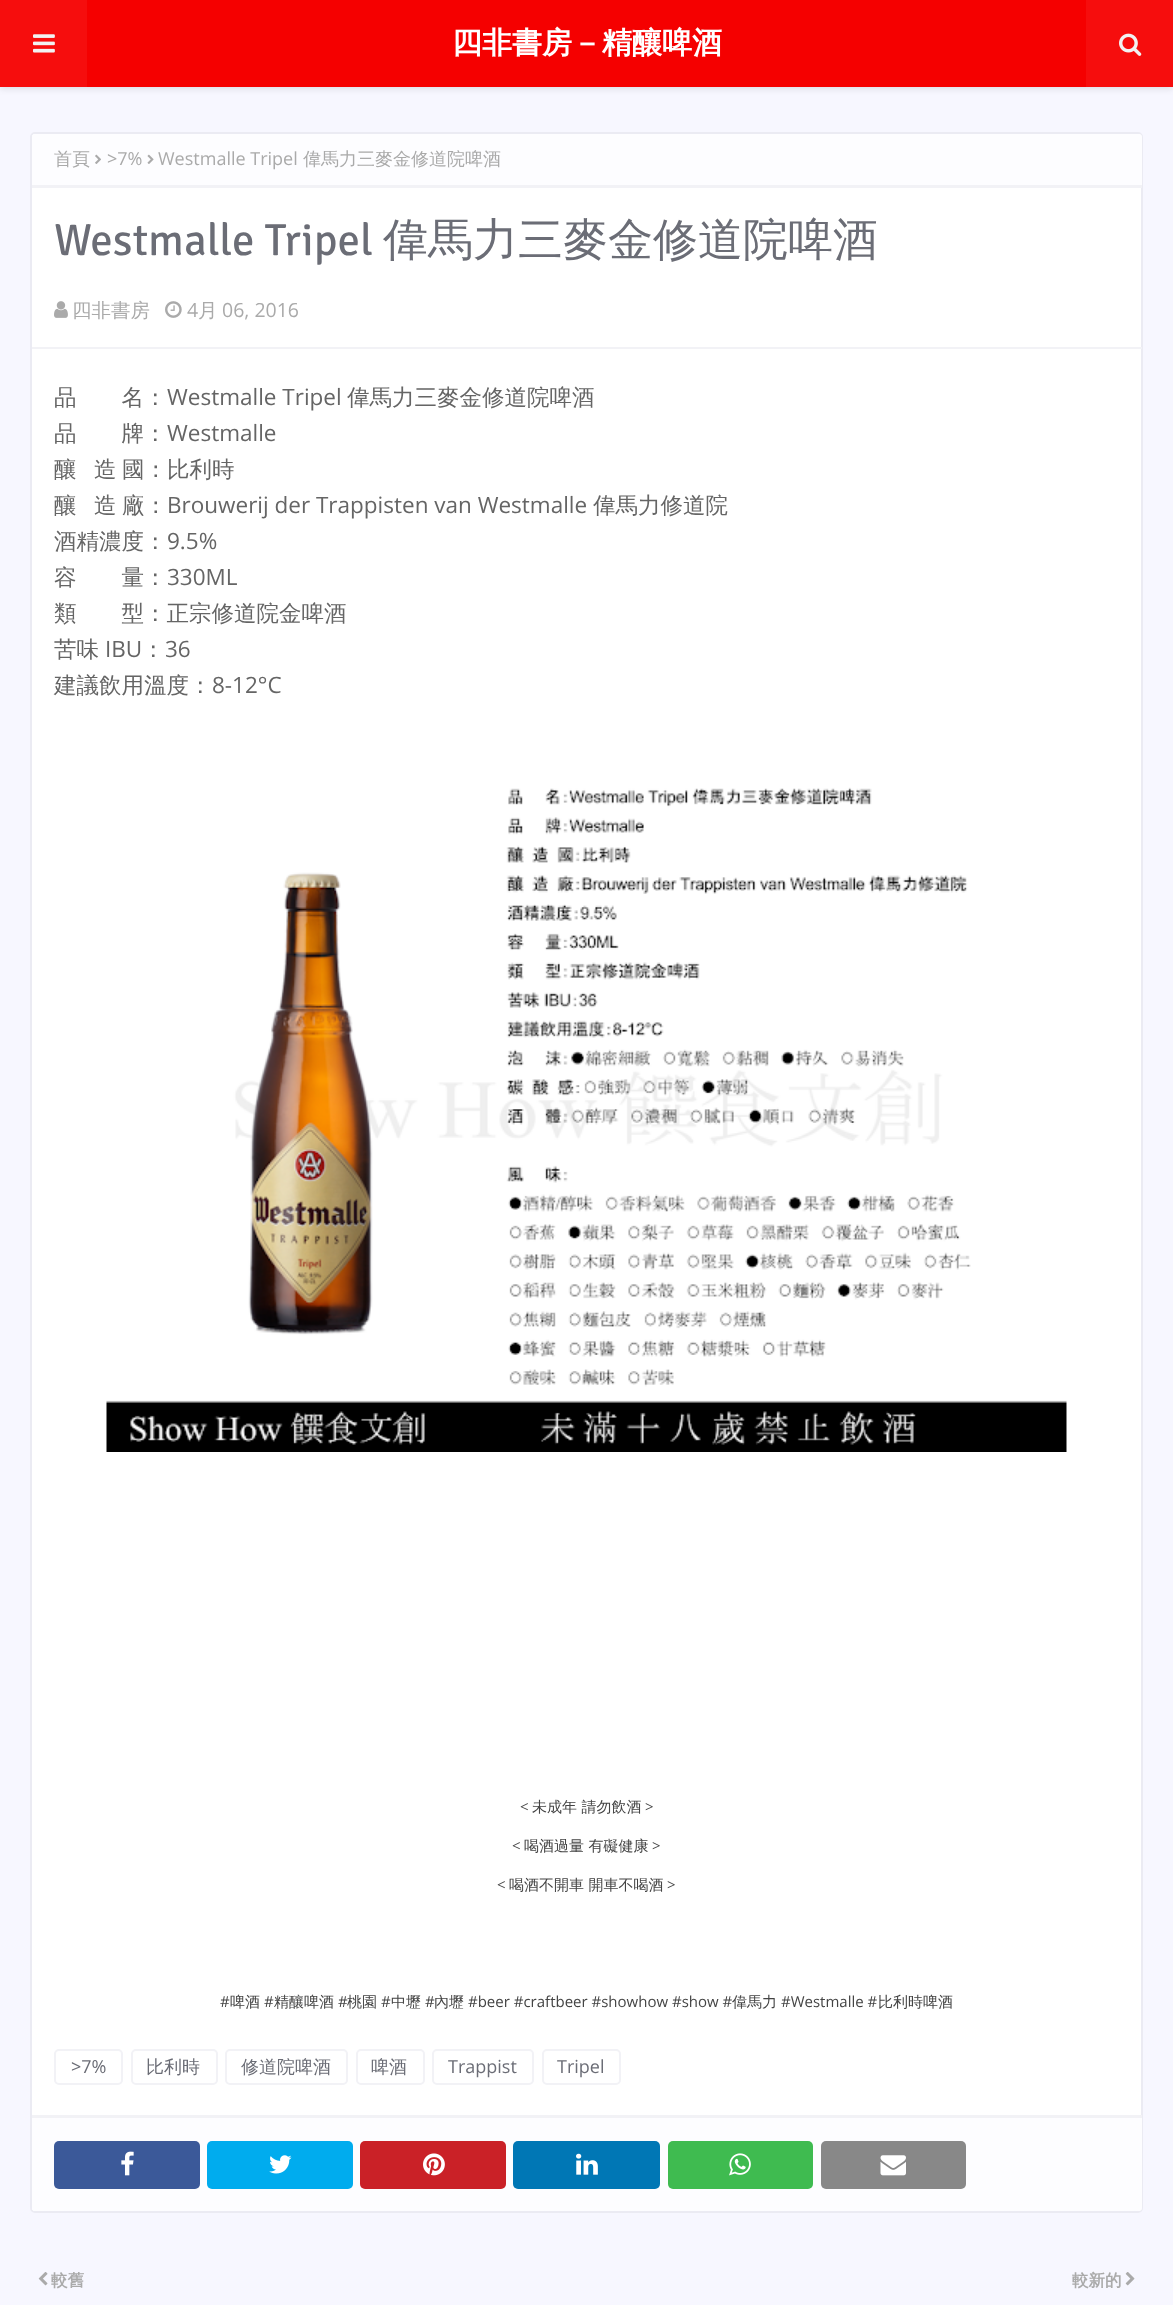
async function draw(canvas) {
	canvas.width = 1173;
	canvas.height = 2305;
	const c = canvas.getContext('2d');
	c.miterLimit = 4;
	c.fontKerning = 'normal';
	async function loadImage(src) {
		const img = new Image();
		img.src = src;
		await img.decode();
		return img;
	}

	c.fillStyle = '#f7f7ff';
	c.fillRect(0, 0, 1173, 2305);
	c.fillStyle = '#0000001a';
	c.filter = 'blur(3px)';
	c.beginPath();
	c.rect(0, 2, 1173, 87);
	c.fill();
	c.filter = 'none';
	c.fillStyle = '#f50000';
	c.fillRect(87, 0, 999, 87);
	c.fillStyle = '#f60d0d';
	c.fillRect(0, 0, 87, 87);
	c.drawImage(await loadImage('img1.png'), 33, 34, 22, 19);
	c.font = 'bold 30px WenQuanYi Zen Hei';
	c.fillStyle = '#fff';
	c.fillText('四非書房－精釀啤酒', 452, 53);
	c.fillStyle = '#f60d0d';
	c.fillRect(1086, 0, 87, 87);
	c.drawImage(await loadImage('img2.png'), 1119, 33, 23, 23);
	c.fillStyle = '#fff';
	c.beginPath();
	c.roundRect(31, 133, 1111, 2079, 4);
	c.fill();
	c.strokeStyle = '#ebebf3';
	c.lineWidth = 2;
	c.stroke();
	c.fillStyle = '#fdfdff';
	c.beginPath();
	c.roundRect(32, 134, 1110, 54, [3, 3, 0, 0]);
	c.fill();
	c.fillStyle = '#f2f2f6';
	c.fillRect(32, 185, 1110, 3);
	c.font = '500 18px WenQuanYi Zen Hei';
	c.fillStyle = '#aaa';
	c.fillText('首頁', 54, 165);
	c.drawImage(await loadImage('img3.png'), 95, 154, 6, 10);
	c.font = '18px Open Sans';
	c.fillText('>7%', 107, 165);
	c.drawImage(await loadImage('img4.png'), 147, 154, 7, 10);
	c.fillText('Westmalle Tripel', 158, 165);
	c.font = '500 18px WenQuanYi Zen Hei';
	c.fillText('偉馬力三麥金修道院啤酒', 303, 165);
	c.font = '45px Signika Negative';
	c.fillStyle = '#6b6d76';
	c.fillText('Westmalle Tripel', 54, 255);
	c.font = '500 45px WenQuanYi Zen Hei';
	c.fillText('偉馬力三麥金修道院啤酒', 383, 255);
	c.drawImage(await loadImage('img5.png'), 54, 301, 14, 17);
	c.font = '500 19.5px WenQuanYi Zen Hei';
	c.fillStyle = '#aaa';
	c.fillText('四非書房', 72, 317);
	c.drawImage(await loadImage('img6.png'), 165, 301, 17, 17);
	c.font = '19.5px Open Sans';
	c.fillText('4', 187, 317);
	c.font = '500 19.5px WenQuanYi Zen Hei';
	c.fillText('月', 198, 317);
	c.font = '19.5px Open Sans';
	c.fillText('06, 2016', 222, 317);
	c.fillStyle = '#f2f2f6';
	c.fillRect(32, 347, 1110, 2);
	c.font = '500 22.5px WenQuanYi Zen Hei';
	c.fillStyle = '#656565';
	c.fillText('品　　名：', 54, 405);
	c.font = '22.5px Open Sans';
	c.fillText('Westmalle Tripel', 167, 405);
	c.font = '500 22.5px WenQuanYi Zen Hei';
	c.fillText('偉馬力三麥金修道院啤酒', 347, 405);
	c.fillText('品　　牌：', 54, 441);
	c.font = '22.5px Open Sans';
	c.fillText('Westmalle', 167, 441);
	c.font = '500 22.5px WenQuanYi Zen Hei';
	for (const [text, x, y] of [
		['釀', 54, 477],
		['造', 94, 477],
		['國：比利時', 122, 477],
		['釀', 54, 513],
		['造', 94, 513],
		['廠：', 122, 513],
	]) {
		c.fillText(text, x, y);
	}
	c.font = '22.5px Open Sans';
	c.fillText('Brouwerij der Trappisten van Westmalle', 167, 513);
	c.font = '500 22.5px WenQuanYi Zen Hei';
	c.fillText('偉馬力修道院', 593, 513);
	c.fillText('酒精濃度：', 54, 549);
	c.font = '22.5px Open Sans';
	c.fillText('9.5%', 167, 549);
	c.font = '500 22.5px WenQuanYi Zen Hei';
	c.fillText('容　　量：', 54, 585);
	c.font = '22.5px Open Sans';
	c.fillText('330ML', 167, 585);
	c.font = '500 22.5px WenQuanYi Zen Hei';
	c.fillText('類　　型：正宗修道院金啤酒', 54, 621);
	c.fillText('苦味', 54, 657);
	c.font = '22.5px Open Sans';
	c.fillText('IBU', 105, 657);
	c.font = '500 22.5px WenQuanYi Zen Hei';
	c.fillText('：', 142, 657);
	c.font = '22.5px Open Sans';
	c.fillText('36', 165, 657);
	c.font = '500 22.5px WenQuanYi Zen Hei';
	c.fillText('建議飲用溫度：', 54, 693);
	c.font = '22.5px Open Sans';
	c.fillText('8-12°C', 212, 693);
	c.drawImage(await loadImage('img7.png'), 106, 787, 961, 665);
	c.font = '15px Open Sans';
	c.fillStyle = '#444';
	c.fillText('<', 520, 1812);
	c.font = '500 15px WenQuanYi Zen Hei';
	c.fillText('未成年 請勿飲酒', 532, 1812);
	c.font = '15px Open Sans';
	c.fillText('>', 645, 1812);
	c.fillText('<', 512, 1851);
	c.font = '500 15px WenQuanYi Zen Hei';
	c.fillText('喝酒過量 有礙健康', 524, 1851);
	c.font = '15px Open Sans';
	c.fillText('>', 652, 1851);
	c.fillText('<', 497, 1890);
	c.font = '500 15px WenQuanYi Zen Hei';
	c.fillText('喝酒不開車 開車不喝酒', 509, 1890);
	c.font = '15px Open Sans';
	c.fillText('>', 667, 1890);
	c.fillText('#', 220, 2007);
	c.font = '500 15px WenQuanYi Zen Hei';
	c.fillText('啤酒', 230, 2007);
	c.font = '15px Open Sans';
	c.fillText('#', 264, 2007);
	c.font = '500 15px WenQuanYi Zen Hei';
	c.fillText('精釀啤酒', 274, 2007);
	c.font = '15px Open Sans';
	c.fillText('#', 338, 2007);
	c.font = '500 15px WenQuanYi Zen Hei';
	c.fillText('桃園', 347, 2007);
	c.font = '15px Open Sans';
	c.fillText('#', 381, 2007);
	c.font = '500 15px WenQuanYi Zen Hei';
	c.fillText('中壢', 391, 2007);
	c.font = '15px Open Sans';
	c.fillText('#', 425, 2007);
	c.font = '500 15px WenQuanYi Zen Hei';
	c.fillText('內壢', 434, 2007);
	c.font = '15px Open Sans';
	c.fillText('#beer #craftbeer #showhow #show #', 468, 2007);
	c.font = '500 15px WenQuanYi Zen Hei';
	c.fillText('偉馬力', 732, 2007);
	c.font = '15px Open Sans';
	c.fillText('#Westmalle #', 781, 2007);
	c.font = '500 15px WenQuanYi Zen Hei';
	c.fillText('比利時啤酒', 878, 2007);
	c.beginPath();
	c.roundRect(55, 2050, 67, 34, 4);
	c.strokeStyle = '#f2f2f6';
	c.stroke();
	c.font = '18px Open Sans';
	c.fillStyle = '#6b6d76';
	c.fillText('>7%', 71, 2073);
	c.beginPath();
	c.roundRect(132, 2050, 85, 34, 4);
	c.stroke();
	c.font = '500 18px WenQuanYi Zen Hei';
	c.fillText('比利時', 146, 2073);
	c.beginPath();
	c.roundRect(226, 2050, 121, 34, 4);
	c.stroke();
	c.fillText('修道院啤酒', 241, 2073);
	c.beginPath();
	c.roundRect(357, 2050, 67, 34, 4);
	c.stroke();
	c.fillText('啤酒', 371, 2073);
	c.beginPath();
	c.roundRect(433, 2050, 100, 34, 4);
	c.stroke();
	c.font = '18px Open Sans';
	c.fillText('Trappist', 448, 2073);
	c.beginPath();
	c.roundRect(543, 2050, 77, 34, 4);
	c.stroke();
	c.fillText('Tripel', 557, 2073);
	c.fillStyle = '#fdfdff';
	c.beginPath();
	c.roundRect(32, 2115, 1110, 96, [0, 0, 3, 3]);
	c.fill();
	c.fillStyle = '#f2f2f6';
	c.fillRect(32, 2115, 1110, 3);
	c.fillStyle = '#3b5999';
	c.beginPath();
	c.roundRect(54, 2141, 146, 48, 5);
	c.fill();
	c.drawImage(await loadImage('img8.png'), 121, 2151, 13, 25);
	c.fillStyle = '#00acee';
	c.beginPath();
	c.roundRect(207, 2141, 146, 48, 5);
	c.fill();
	c.drawImage(await loadImage('img9.png'), 269, 2155, 23, 19);
	c.fillStyle = '#ca2127';
	c.beginPath();
	c.roundRect(360, 2141, 146, 48, 5);
	c.fill();
	c.drawImage(await loadImage('img10.png'), 423, 2153, 22, 23);
	c.fillStyle = '#0077b5';
	c.beginPath();
	c.roundRect(513, 2141, 147, 48, 5);
	c.fill();
	c.drawImage(await loadImage('img11.png'), 576, 2153, 22, 22);
	c.fillStyle = '#3fbb50';
	c.beginPath();
	c.roundRect(668, 2141, 145, 48, 5);
	c.fill();
	c.drawImage(await loadImage('img12.png'), 729, 2153, 22, 23);
	c.fillStyle = '#888';
	c.beginPath();
	c.roundRect(821, 2141, 145, 48, 5);
	c.fill();
	c.drawImage(await loadImage('img13.png'), 880, 2155, 26, 21);
	c.drawImage(await loadImage('img14.png'), 38, 2272, 10, 14);
	c.font = 'bold 16.5px WenQuanYi Zen Hei';
	c.fillStyle = '#aaa';
	c.fillText('較舊', 51, 2286);
	c.fillText('較新的', 1072, 2286);
	c.drawImage(await loadImage('img15.png'), 1125, 2272, 10, 14);
}

draw(document.querySelector('canvas'));
